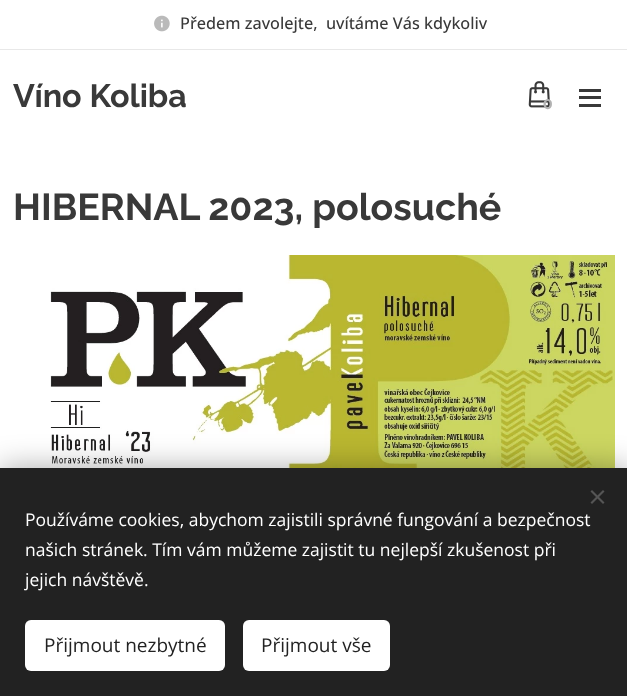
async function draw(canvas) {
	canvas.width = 627;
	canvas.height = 696;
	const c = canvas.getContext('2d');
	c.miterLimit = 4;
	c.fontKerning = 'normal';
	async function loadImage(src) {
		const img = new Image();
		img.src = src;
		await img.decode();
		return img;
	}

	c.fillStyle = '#fff';
	c.fillRect(0, 0, 627, 696);
	c.drawImage(await loadImage('img1.png'), 154, 15, 16, 17);
	c.font = '500 16.25px Open Sans';
	c.fillStyle = '#393939';
	c.fillText('Předem zavolejte,  uvítáme Vás kdykoliv', 180, 29);
	c.fillStyle = '#e8e8e8';
	c.fillRect(0, 49, 627, 1);
	c.font = 'bold 32.25px Raleway';
	c.fillStyle = '#393939';
	c.fillText('Víno Koliba', 13, 107);
	c.drawImage(await loadImage('img2.png'), 528, 81, 22, 27);
	c.font = 'bold 14px Montserrat';
	c.fillStyle = '#b2b2b2';
	c.fillText('0', 543, 109);
	for (const [x, y, w, h, color] of [
		[579, 96, 22, 3, '#393939'],
		[579, 89, 22, 3, '#393939'],
		[579, 104, 22, 3, '#393939'],
	]) {
		c.fillStyle = color;
		c.fillRect(x, y, w, h);
	}
	c.font = 'bold 37.5px Raleway';
	c.fillText('HIBERNAL 2023, polosuché', 13, 220);
	c.drawImage(await loadImage('img3.png'), 50, 255, 565, 213);
	c.fillStyle = '#00000054';
	c.filter = 'blur(15.5px)';
	c.beginPath();
	c.rect(0, 468, 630, 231);
	c.fill();
	c.filter = 'none';
	c.fillStyle = '#222';
	c.fillRect(0, 468, 627, 228);
	c.fillStyle = '#555';
	c.beginPath();
	c.moveTo(590.5, 502.5);
	c.lineTo(603, 490);
	c.lineTo(604.5, 491.5);
	c.lineTo(592, 504);
	c.closePath();
	c.fill();
	c.beginPath();
	c.moveTo(592, 490);
	c.lineTo(604.5, 502.5);
	c.lineTo(603, 504);
	c.lineTo(590.5, 491.5);
	c.closePath();
	c.fill();
	c.font = '17.5px Open Sans';
	c.fillStyle = '#fff';
	for (const [text, x, y] of [
		['Používáme cookies, abychom zajistili správné fungování a bezpečnost', 25, 526],
		['našich stránek. Tím vám můžeme zajistit tu nejlepší zkušenost při', 25, 556],
		['jejich návštěvě.', 25, 586],
	]) {
		c.fillText(text, x, y);
	}
	c.beginPath();
	c.roundRect(25, 620, 200, 51, 6);
	c.fill();
	c.font = '19px Open Sans';
	c.fillStyle = '#222';
	c.fillText('Přijmout nezbytné', 44, 652);
	c.fillStyle = '#fff';
	c.beginPath();
	c.roundRect(243, 620, 147, 51, 6);
	c.fill();
	c.fillStyle = '#222';
	c.fillText('Přijmout vše', 261, 652);
}

draw(document.querySelector('canvas'));
